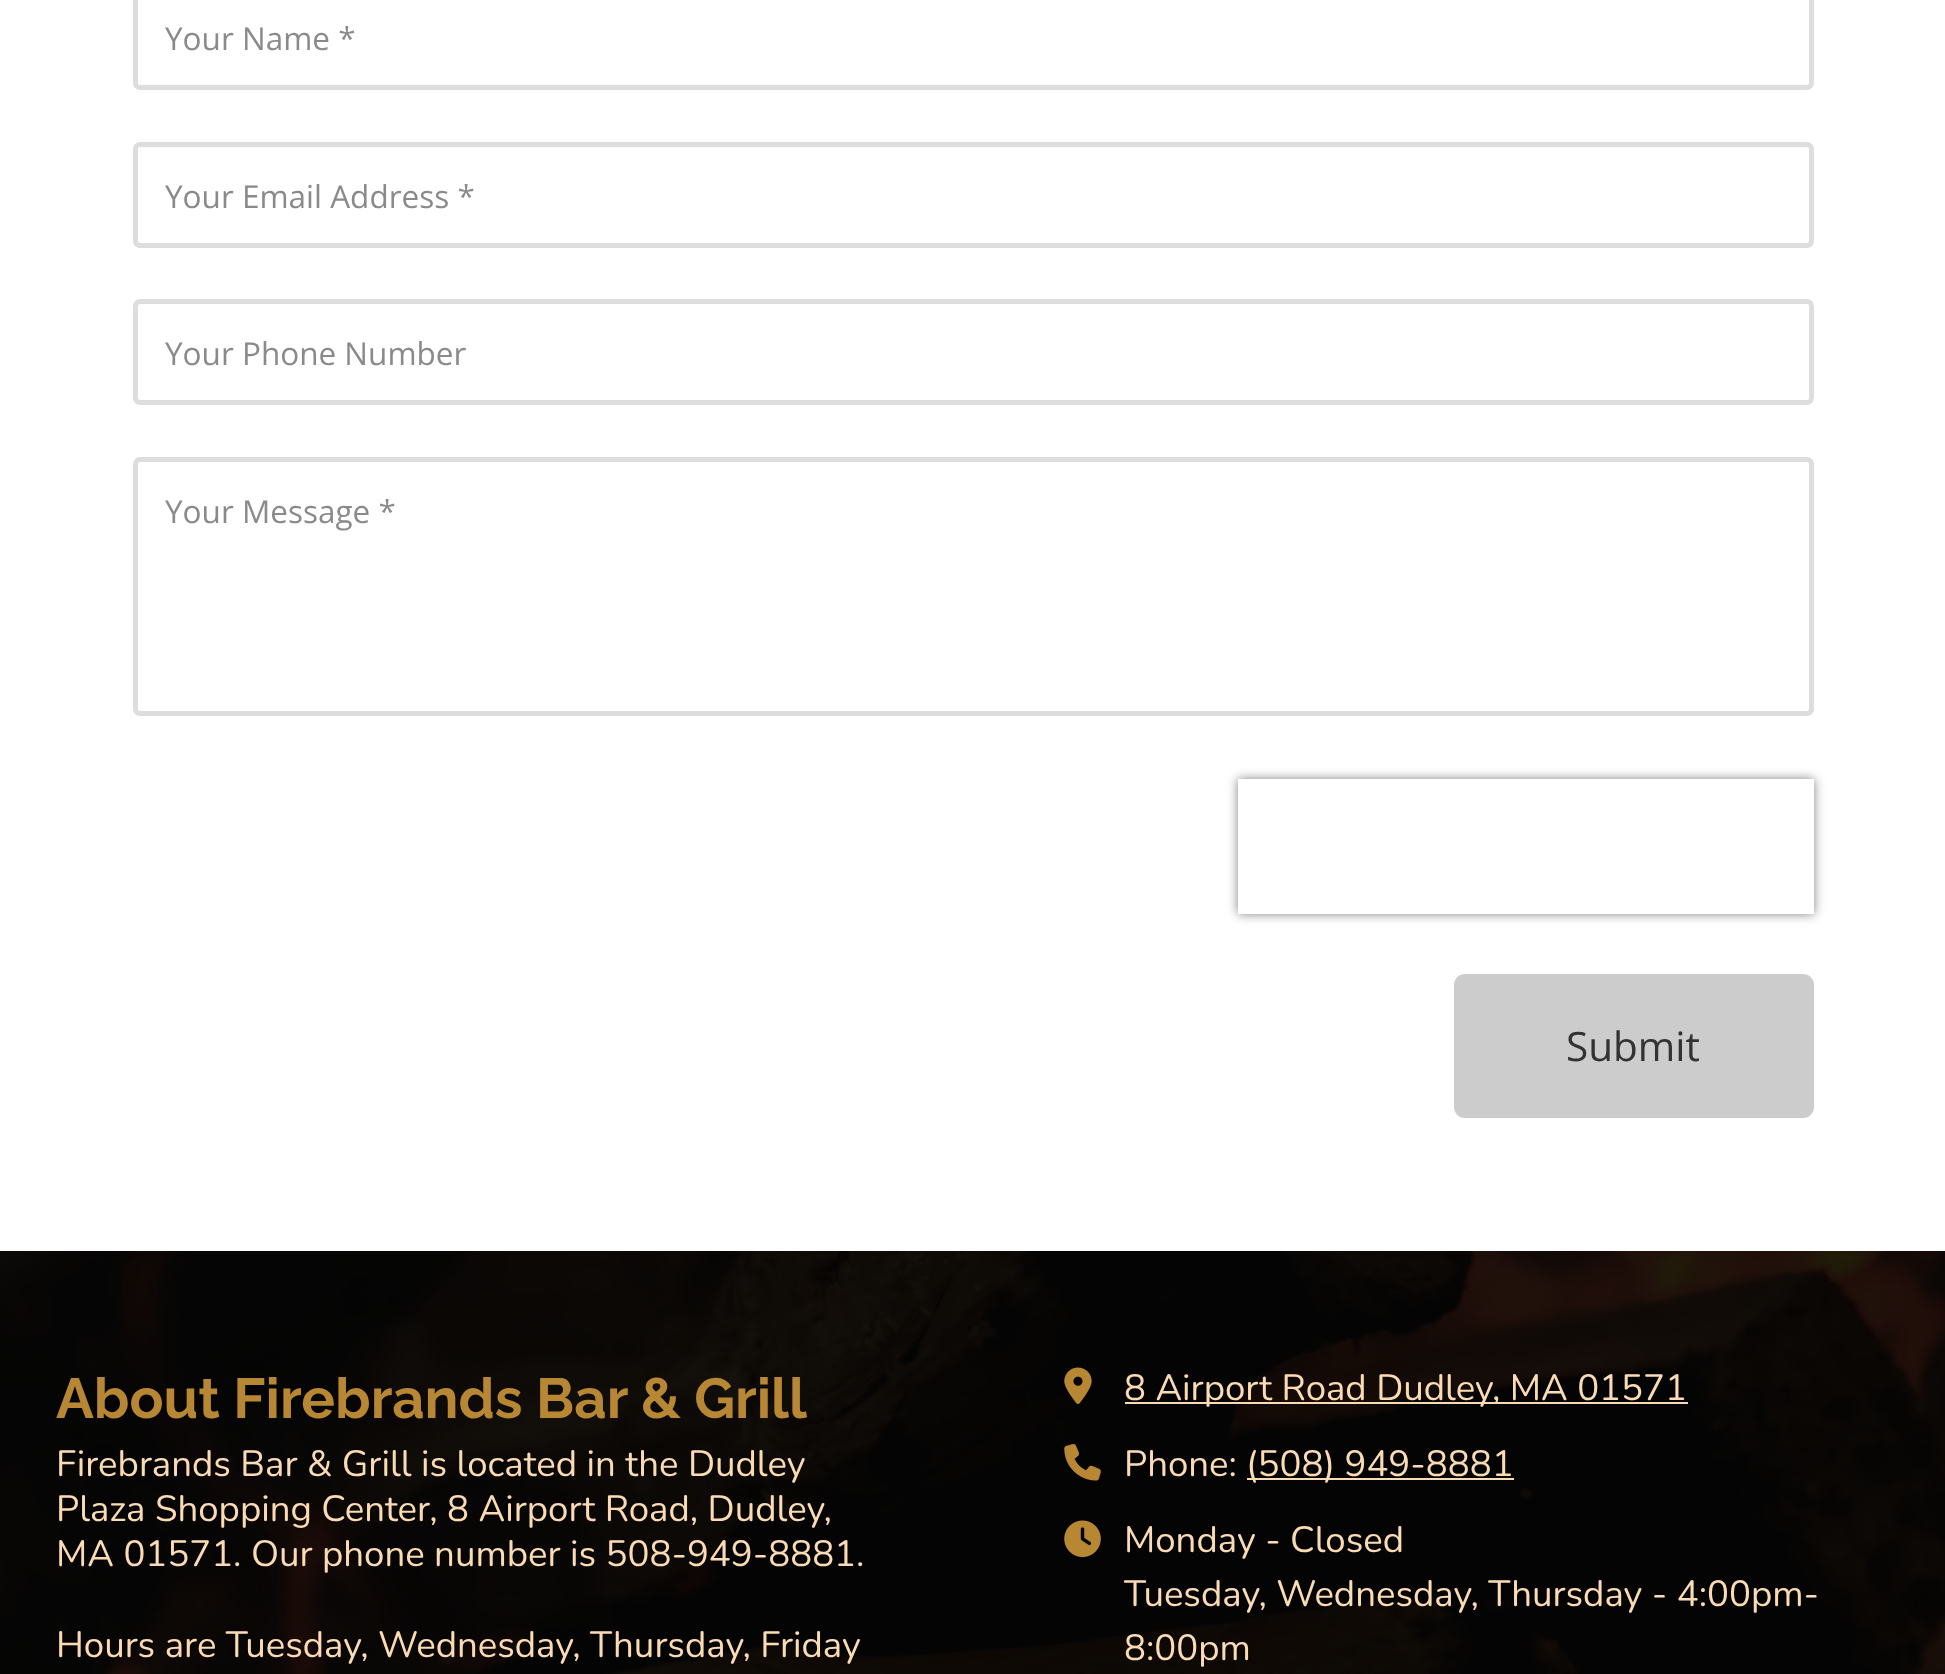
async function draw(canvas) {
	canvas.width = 1945;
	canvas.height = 1674;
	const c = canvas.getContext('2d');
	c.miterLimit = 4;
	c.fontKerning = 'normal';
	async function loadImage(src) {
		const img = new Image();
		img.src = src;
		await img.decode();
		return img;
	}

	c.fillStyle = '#fff';
	c.fillRect(0, 0, 1945, 1674);
	c.beginPath();
	c.roundRect(135.5, -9.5, 1676, 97, 4.5);
	c.strokeStyle = '#ddd';
	c.lineWidth = 5;
	c.stroke();
	c.font = '31.5px Open Sans';
	c.fillStyle = '#8a8a8a';
	c.fillText('Your Name *', 165, 50);
	c.beginPath();
	c.roundRect(135.5, 144.5, 1676, 101, 4.5);
	c.stroke();
	c.fillText('Your Email Address *', 165, 208);
	c.beginPath();
	c.roundRect(135.5, 301.5, 1676, 101, 4.5);
	c.stroke();
	c.fillText('Your Phone Number', 165, 365);
	c.beginPath();
	c.roundRect(135.5, 459.5, 1676, 254, 4.5);
	c.stroke();
	c.fillText('Your Message *', 165, 523);
	c.save();
	c.beginPath();
	c.moveTo(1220, 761);
	c.lineTo(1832, 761);
	c.lineTo(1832, 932);
	c.lineTo(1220, 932);
	c.closePath();
	c.moveTo(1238, 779);
	c.lineTo(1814, 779);
	c.lineTo(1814, 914);
	c.lineTo(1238, 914);
	c.closePath();
	c.clip('evenodd');
	c.fillStyle = '#808080';
	c.filter = 'blur(5.5px)';
	c.beginPath();
	c.rect(1238, 779, 576, 135);
	c.fill();
	c.filter = 'none';
	c.restore();
	c.fillStyle = '#ccc';
	c.beginPath();
	c.roundRect(1454, 974, 360, 144, 11);
	c.fill();
	c.font = '40.5px Open Sans';
	c.fillStyle = '#333';
	c.fillText('Submit', 1566, 1061);
	c.drawImage(await loadImage('img4.png'), 0, 1251, 1945, 423);
	c.fillStyle = '#050505e3';
	c.fillRect(0, 1251, 1945, 423);
	c.font = 'bold 56.25px Raleway';
	c.fillStyle = '#b88733';
	c.fillText('About Firebrands Bar & Grill', 56, 1418);
	c.font = '36.6px Nunito';
	c.fillStyle = '#fadbb4';
	for (const [text, x, y] of [
		['Firebrands Bar & Grill is located in the Dudley', 56, 1476],
		['Plaza Shopping Center, 8 Airport Road, Dudley,', 56, 1521],
		['MA 01571. Our phone number is 508-949-8881.', 56, 1566],
		['Hours are Tuesday, Wednesday, Thursday, Friday', 56, 1657],
	]) {
		c.fillText(text, x, y);
	}
	c.drawImage(await loadImage('img1.png'), 1064, 1367, 28, 37);
	c.fillRect(1125, 1402, 563, 2);
	c.fillText('8 Airport Road Dudley, MA 01571', 1124, 1400);
	c.drawImage(await loadImage('img2.png'), 1064, 1444, 37, 37);
	c.fillText('Phone:', 1124, 1476);
	c.fillRect(1247, 1478, 267, 2);
	c.fillText('(508) 949-8881', 1246, 1476);
	c.drawImage(await loadImage('img3.png'), 1064, 1520, 37, 38);
	for (const [text, x, y] of [
		['Monday - Closed', 1124, 1552],
		['Tuesday, Wednesday, Thursday - 4:00pm-', 1124, 1606],
		['8:00pm', 1124, 1660],
	]) {
		c.fillText(text, x, y);
	}
}

draw(document.querySelector('canvas'));
